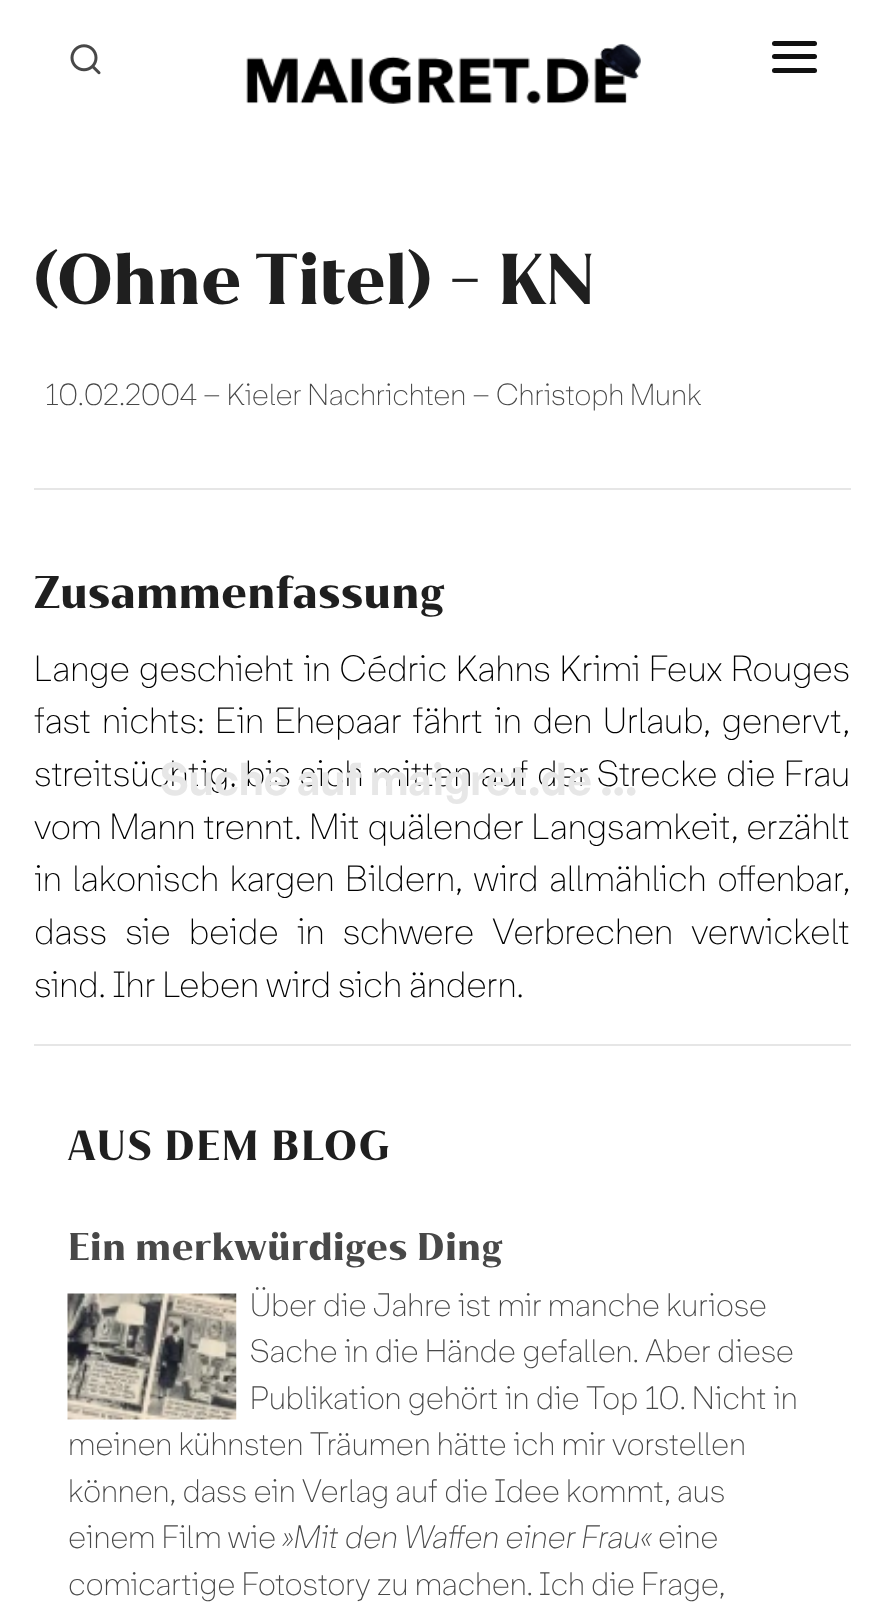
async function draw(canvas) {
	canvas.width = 883;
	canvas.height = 1609;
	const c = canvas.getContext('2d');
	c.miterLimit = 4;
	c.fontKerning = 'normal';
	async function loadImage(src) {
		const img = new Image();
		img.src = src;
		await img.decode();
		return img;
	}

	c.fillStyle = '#fff';
	c.fillRect(0, 0, 883, 1609);
	c.letterSpacing = '1.1px';
	c.font = 'bold 69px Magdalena';
	c.fillStyle = '#1f1f1f';
	c.fillText('(Ohne Titel) - KN', 34, 304);
	c.letterSpacing = '0px';
	c.font = '100 29.25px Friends';
	c.fillStyle = '#484848';
	c.fillText('10.02.2004 – Kieler Nachrichten – Christoph Munk', 45, 405);
	c.fillStyle = '#e6e6e6';
	c.fillRect(34, 488, 817, 2);
	c.letterSpacing = '1.1px';
	c.font = 'bold 43.9px Magdalena';
	c.fillStyle = '#1f1f1f';
	c.fillText('Zusammenfassung', 34, 608);
	c.letterSpacing = '0px';
	c.wordSpacing = '1.75px';
	c.font = '100 35.1px Friends';
	c.fillStyle = '#000';
	c.fillText('Lange geschieht in Cédric Kahns Krimi Feux Rouges', 34, 681);
	c.wordSpacing = '3.75px';
	c.fillText('fast nichts: Ein Ehepaar fährt in den Urlaub, genervt,', 34, 733);
	c.wordSpacing = '1.25px';
	c.fillText('streitsüchtig, bis sich mitten auf der Strecke die Frau', 34, 786);
	c.wordSpacing = '0.75px';
	c.fillText('vom Mann trennt. Mit quälender Langsamkeit, erzählt', 34, 839);
	c.wordSpacing = '3.75px';
	c.fillText('in lakonisch kargen Bildern, wird allmählich offenbar,', 34, 891);
	c.wordSpacing = '11px';
	c.fillText('dass sie beide in schwere Verbrechen verwickelt', 34, 944);
	c.wordSpacing = '0px';
	c.fillText('sind. Ihr Leben wird sich ändern.', 34, 997);
	c.fillStyle = '#e6e6e6';
	c.fillRect(34, 1044, 817, 2);
	c.letterSpacing = '2.25px';
	c.font = 'bold 40.5px Magdalena';
	c.fillStyle = '#1f1f1f';
	c.fillText('AUS DEM BLOG', 68, 1160);
	c.letterSpacing = '1.1px';
	c.font = 'bold 37.25px Magdalena';
	c.fillStyle = '#484848';
	c.fillText('Ein merkwürdiges Ding', 68, 1260);
	c.letterSpacing = '0px';
	c.font = '100 31.05px Friends';
	for (const [text, x, y] of [
		['Über die Jahre ist mir manche kuriose', 250, 1316],
		['Sache in die Hände gefallen. Aber diese', 250, 1362],
		['Publikation gehört in die Top 10. Nicht in', 250, 1409],
		['meinen kühnsten Träumen hätte ich mir vorstellen', 68, 1455],
		['können, dass ein Verlag auf die Idee kommt, aus', 68, 1502],
		['einem Film wie', 68, 1548],
	]) {
		c.fillText(text, x, y);
	}
	c.font = 'italic 100 31.05px Friends';
	c.fillText('»Mit den Waffen einer Frau«', 282, 1548);
	c.font = '100 31.05px Friends';
	c.fillText('eine', 658, 1548);
	c.fillText('comicartige Fotostory zu machen. Ich die Frage,', 68, 1595);
	c.drawImage(await loadImage('img1.png'), 67, 1293, 170, 127);
	c.drawImage(await loadImage('img2.png'), 70, 44, 31, 31);
	c.drawImage(await loadImage('img3.png'), 246, 43, 395, 61);
	c.fillStyle = '#111';
	c.beginPath();
	c.roundRect(772, 54, 45, 5, 2.5);
	c.fill();
	c.beginPath();
	c.roundRect(772, 41, 45, 5, 2.5);
	c.fill();
	c.beginPath();
	c.roundRect(772, 68, 45, 5, 2.5);
	c.fill();
	c.font = '800 43.25px Friends';
	c.fillStyle = '#e7e7e7';
	c.fillText('Suche auf maigret.de ...', 160, 795);
}

draw(document.querySelector('canvas'));
